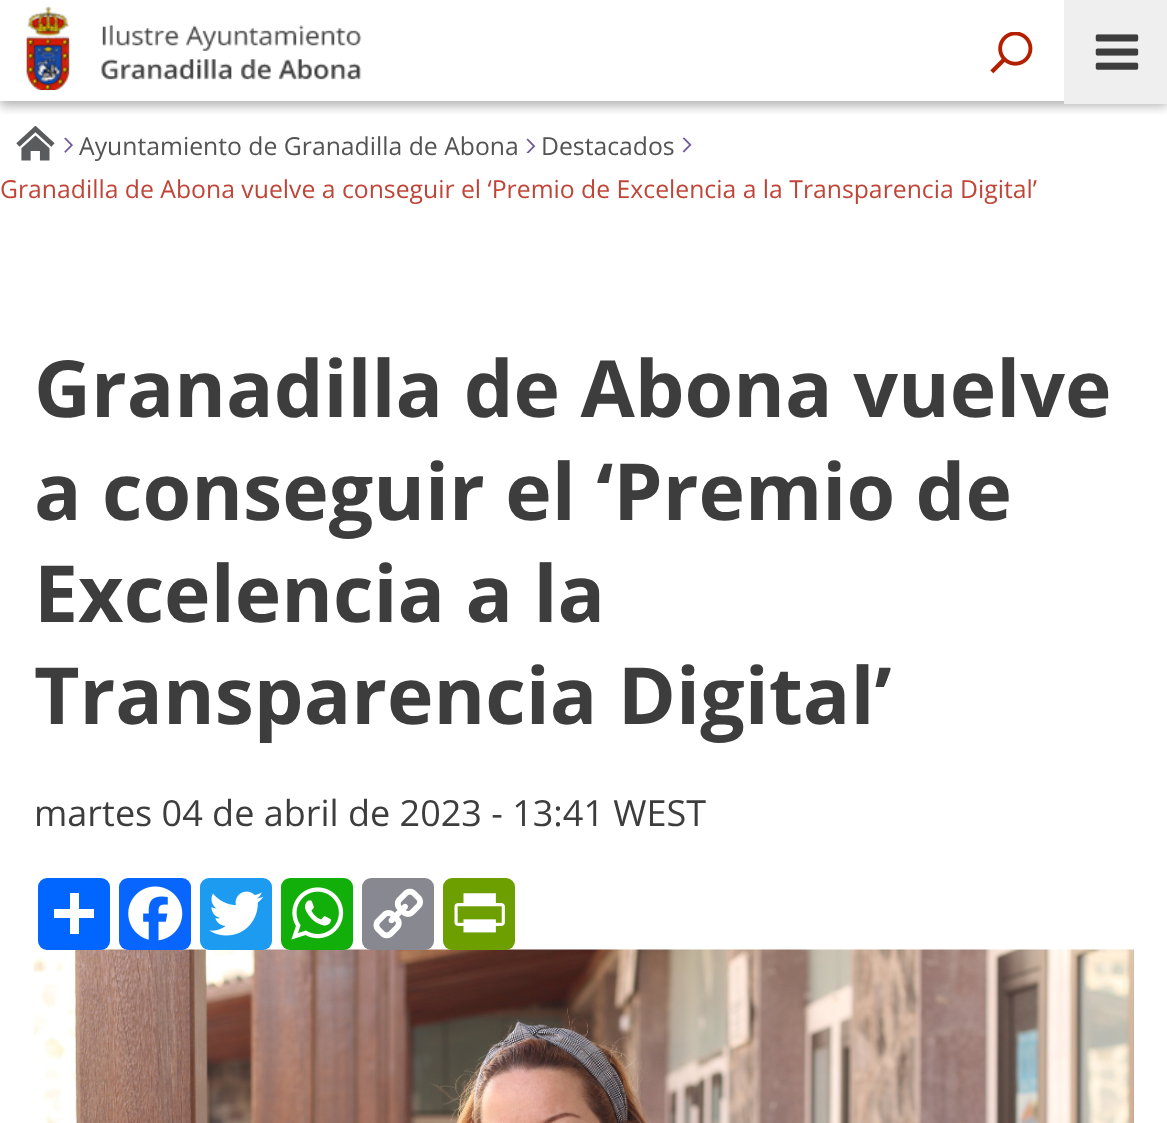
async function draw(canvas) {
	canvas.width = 1167;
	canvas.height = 1123;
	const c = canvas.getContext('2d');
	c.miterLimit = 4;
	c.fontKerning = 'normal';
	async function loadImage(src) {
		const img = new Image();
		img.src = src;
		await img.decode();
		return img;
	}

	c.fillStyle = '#fff';
	c.fillRect(0, 0, 1167, 1123);
	c.save();
	c.beginPath();
	c.rect(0, 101, 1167, 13);
	c.clip();
	c.fillStyle = '#0000004d';
	c.filter = 'blur(5.5px)';
	c.beginPath();
	c.rect(0, 5, 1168, 101);
	c.fill();
	c.filter = 'none';
	c.restore();
	c.drawImage(await loadImage('img1.png'), 26, 6, 336, 84);
	c.drawImage(await loadImage('img2.png'), 990, 32, 43, 42);
	c.fillStyle = '#efefef';
	c.fillRect(1064, 0, 103, 104);
	c.drawImage(await loadImage('img3.png'), 1095, 34, 44, 36);
	c.drawImage(await loadImage('img4.png'), 16, 126, 39, 35);
	c.drawImage(await loadImage('img5.png'), 64, 137, 9, 16);
	c.font = '24.75px Open Sans';
	c.fillStyle = '#535353';
	c.fillText('Ayuntamiento de Granadilla de Abona', 79, 155);
	c.drawImage(await loadImage('img6.png'), 526, 138, 10, 15);
	c.fillText('Destacados', 541, 155);
	c.drawImage(await loadImage('img7.png'), 682, 137, 10, 16);
	c.fillStyle = '#bf4538';
	c.fillText('Granadilla de Abona vuelve a conseguir el ‘Premio de Excelencia a la Transparencia Digital’', 0, 198);
	c.font = 'bold 78.75px Open Sans';
	c.fillStyle = '#3d3d3d';
	for (const [text, x, y] of [
		['Granadilla de Abona vuelve', 34, 417],
		['a conseguir el ‘Premio de', 34, 520],
		['Excelencia a la', 34, 622],
		['Transparencia Digital’', 34, 724],
	]) {
		c.fillText(text, x, y);
	}
	c.font = '36px Open Sans';
	c.fillText('martes 04 de abril de 2023 - 13:41 WEST', 34, 826);
	c.drawImage(await loadImage('img13.png'), 33, 949, 1101, 174);
	c.fillStyle = '#0166ff';
	c.beginPath();
	c.roundRect(38, 878, 72, 72, 9);
	c.fill();
	c.fillStyle = '#fff';
	c.fillRect(70, 893, 9, 41);
	c.fillRect(54, 909, 40, 9);
	c.fillStyle = '#0866ff';
	c.beginPath();
	c.roundRect(119, 878, 72, 72, 9);
	c.fill();
	c.drawImage(await loadImage('img8.png'), 128, 886, 55, 55);
	c.fillStyle = '#1d9bf0';
	c.beginPath();
	c.roundRect(200, 878, 72, 72, 9);
	c.fill();
	c.drawImage(await loadImage('img9.png'), 209, 891, 55, 45);
	c.fillStyle = '#12af0a';
	c.beginPath();
	c.roundRect(281, 878, 72, 72, 9);
	c.fill();
	c.drawImage(await loadImage('img10.png'), 291, 887, 53, 53);
	c.fillStyle = '#888990';
	c.beginPath();
	c.roundRect(362, 878, 72, 72, 9);
	c.fill();
	c.drawImage(await loadImage('img11.png'), 373, 888, 50, 51);
	c.fillStyle = '#6d9f00';
	c.beginPath();
	c.roundRect(443, 878, 72, 72, 9);
	c.fill();
	c.drawImage(await loadImage('img12.png'), 454, 893, 51, 40);
}

draw(document.querySelector('canvas'));
